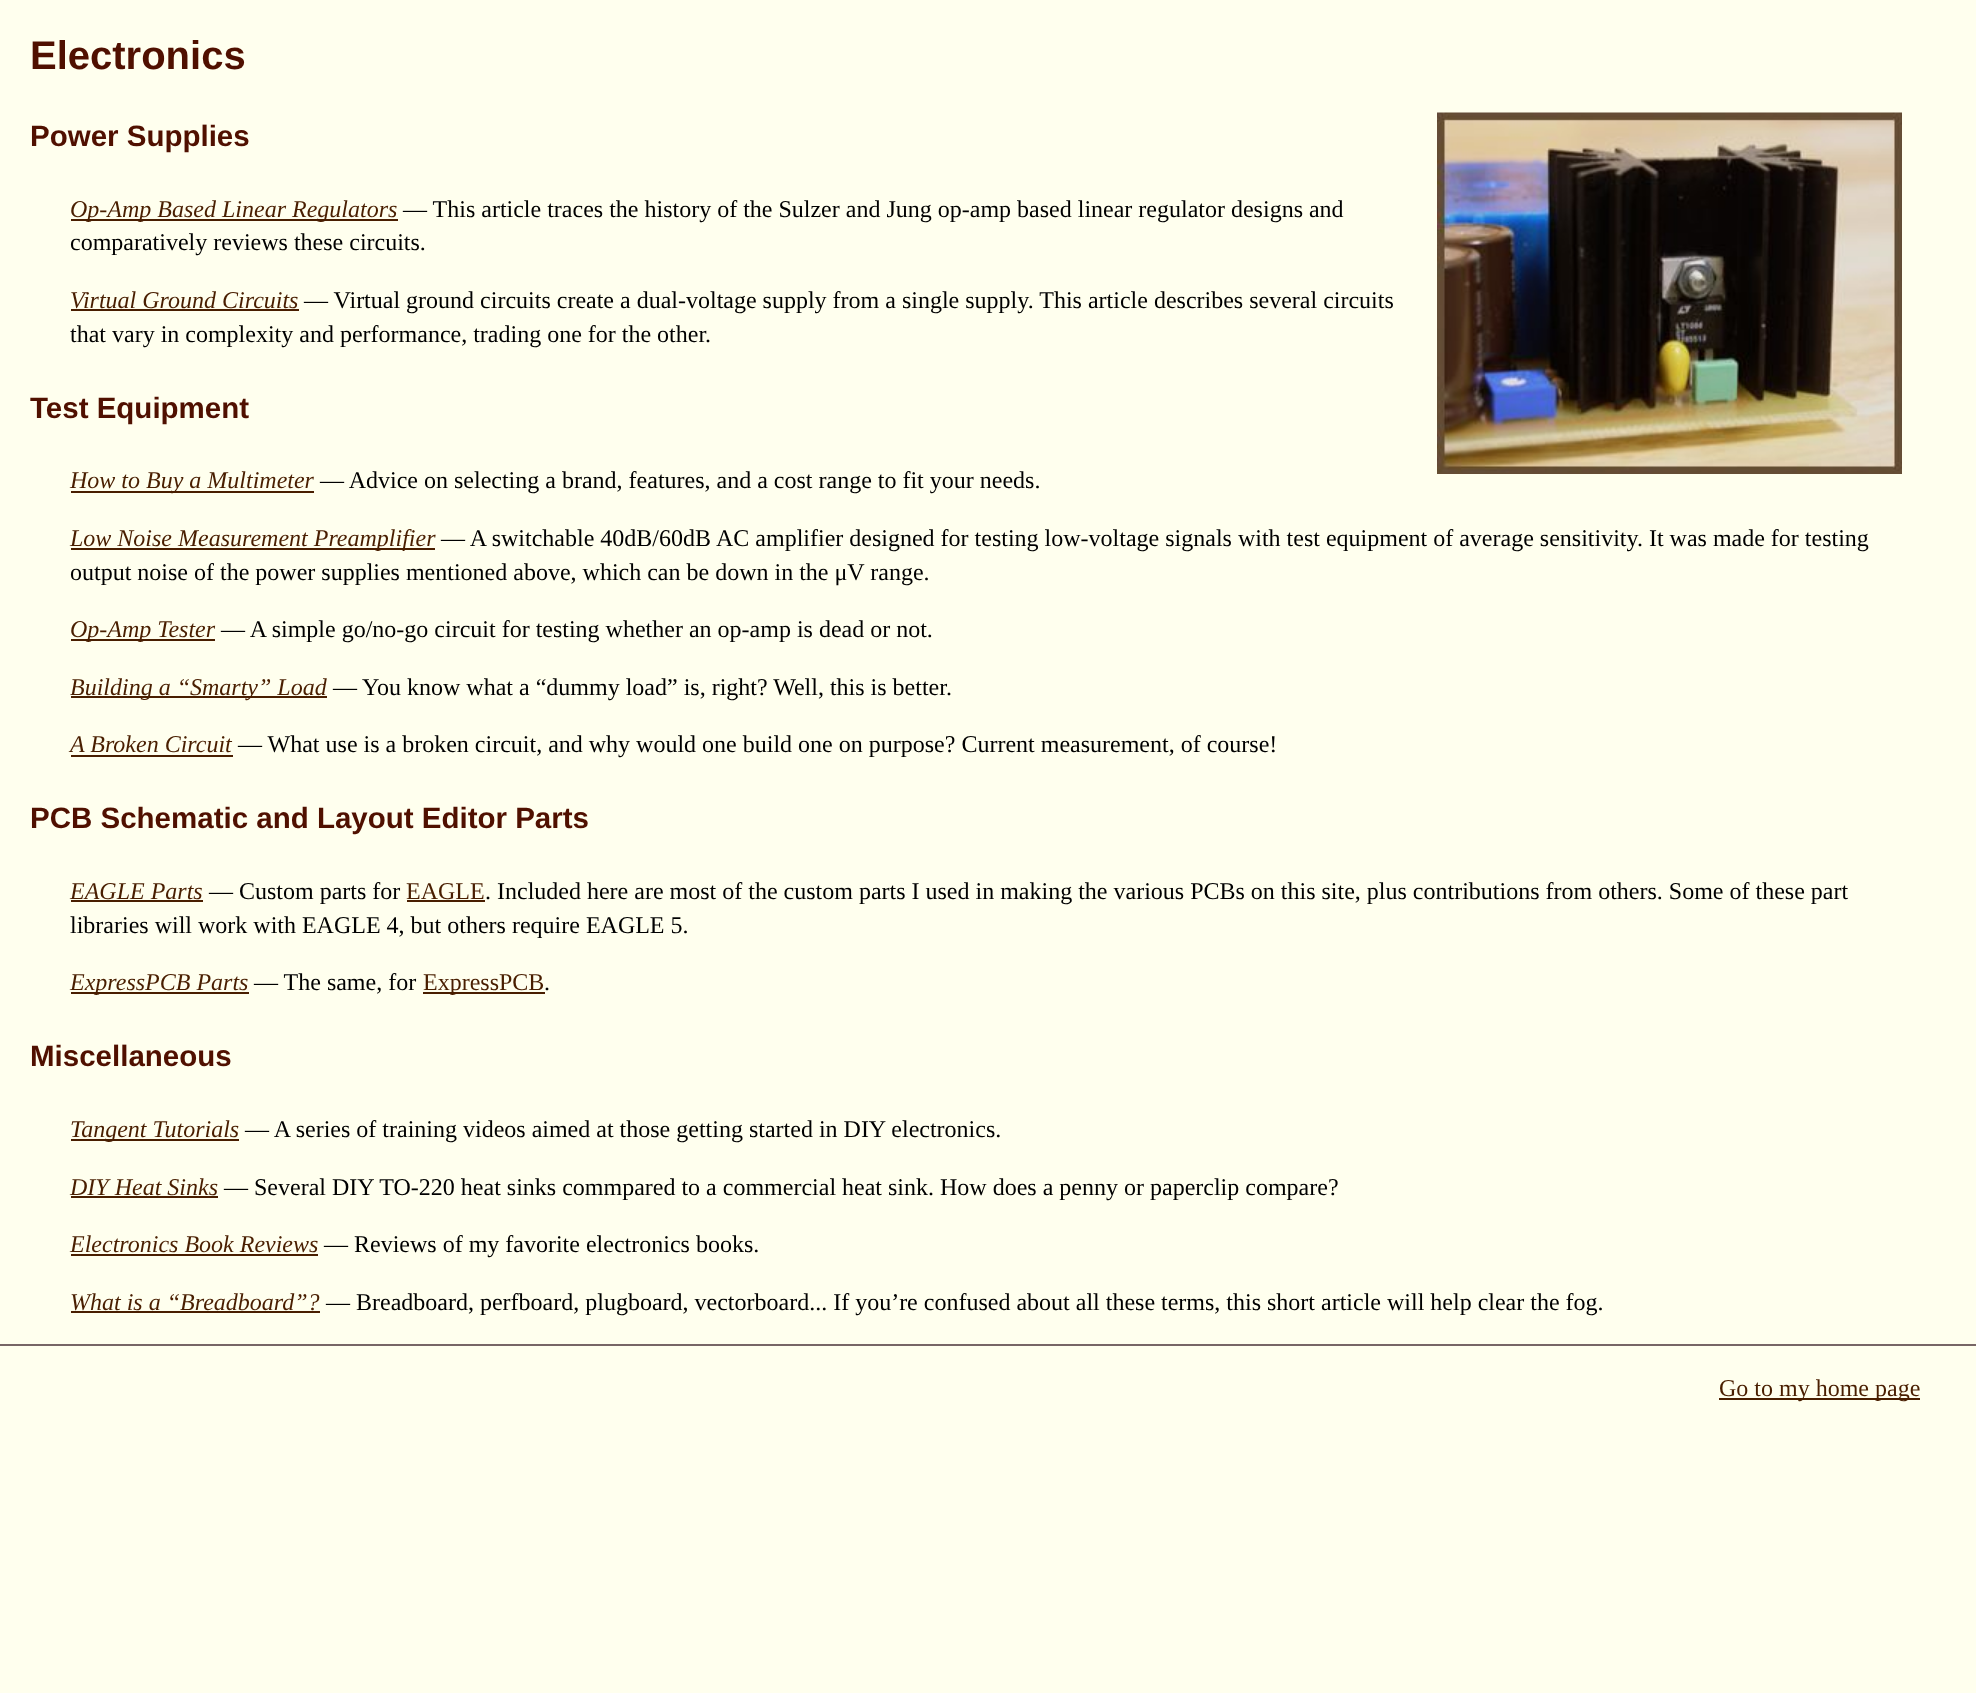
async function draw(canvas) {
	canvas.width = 1976;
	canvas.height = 1693;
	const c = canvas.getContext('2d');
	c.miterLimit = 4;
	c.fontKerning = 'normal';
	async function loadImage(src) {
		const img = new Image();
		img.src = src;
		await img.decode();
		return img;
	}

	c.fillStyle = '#ffe';
	c.fillRect(0, 0, 1976, 1693);
	c.font = 'bold 40px Liberation Sans';
	c.fillStyle = '#501000';
	c.fillText('Electronics', 30, 69);
	c.font = 'bold 29.5px Liberation Sans';
	c.fillText('Power Supplies', 30, 146);
	c.drawImage(await loadImage('img1.png'), 1437, 112, 465, 362);
	c.fillStyle = '#491e00';
	c.fillRect(71, 219, 327, 2);
	c.font = 'italic 24px Liberation Serif';
	c.fillText('Op-Amp Based Linear Regulators', 70, 217);
	c.font = '24px Liberation Serif';
	c.fillStyle = '#000';
	c.fillText('— This article traces the history of the Sulzer and Jung op-amp based linear regulator designs and', 403, 217);
	c.fillText('comparatively reviews these circuits.', 70, 250);
	c.font = 'italic 24px Liberation Serif';
	c.fillStyle = '#491e00';
	c.fillText('Virtual Ground Circuits', 70, 308);
	c.fillRect(71, 309, 228, 2);
	c.font = '24px Liberation Serif';
	c.fillStyle = '#000';
	c.fillText('— Virtual ground circuits create a dual-voltage supply from a single supply. This article describes several circuits', 304, 308);
	c.fillText('that vary in complexity and performance, trading one for the other.', 70, 342);
	c.font = 'bold 29.5px Liberation Sans';
	c.fillStyle = '#501000';
	c.fillText('Test Equipment', 30, 418);
	c.fillStyle = '#491e00';
	c.fillRect(71, 491, 243, 2);
	c.font = 'italic 24px Liberation Serif';
	c.fillText('How to Buy a Multimeter', 70, 488);
	c.font = '24px Liberation Serif';
	c.fillStyle = '#000';
	c.fillText('— Advice on selecting a brand, features, and a cost range to fit your needs.', 320, 488);
	c.fillStyle = '#491e00';
	c.fillRect(71, 548, 364, 2);
	c.font = 'italic 24px Liberation Serif';
	c.fillText('Low Noise Measurement Preamplifier', 70, 546);
	c.font = '24px Liberation Serif';
	c.fillStyle = '#000';
	for (const [text, x, y] of [
		['— A switchable 40dB/60dB', 441, 546],
		['AC amplifier designed for testing low-voltage signals with test equipment of average sensitivity. It was made for testing', 716, 546],
		['output noise of the power supplies mentioned above, which can be down in the μV range.', 70, 580],
	]) {
		c.fillText(text, x, y);
	}
	c.fillStyle = '#491e00';
	c.fillRect(71, 639, 144, 2);
	c.font = 'italic 24px Liberation Serif';
	c.fillText('Op-Amp Tester', 70, 637);
	c.font = '24px Liberation Serif';
	c.fillStyle = '#000';
	c.fillText('— A simple go/no-go circuit for testing whether an op-amp is dead or not.', 221, 637);
	c.fillStyle = '#491e00';
	c.fillRect(71, 696, 256, 2);
	c.font = 'italic 24px Liberation Serif';
	c.fillText('Building a “Smarty” Load', 70, 695);
	c.font = '24px Liberation Serif';
	c.fillStyle = '#000';
	c.fillText('— You know what a “dummy load” is, right? Well, this is better.', 333, 695);
	c.font = 'italic 24px Liberation Serif';
	c.fillStyle = '#491e00';
	c.fillText('A Broken Circuit', 70, 752);
	c.fillRect(71, 755, 162, 2);
	c.font = '24px Liberation Serif';
	c.fillStyle = '#000';
	c.fillText('— What use is a broken circuit, and why would one build one on purpose? Current measurement, of course!', 238, 752);
	c.font = 'bold 29.5px Liberation Sans';
	c.fillStyle = '#501000';
	c.fillText('PCB Schematic and Layout Editor Parts', 30, 828);
	c.font = 'italic 24px Liberation Serif';
	c.fillStyle = '#491e00';
	c.fillText('EAGLE Parts', 70, 899);
	c.fillRect(71, 900, 132, 2);
	c.font = '24px Liberation Serif';
	c.fillStyle = '#000';
	c.fillText('— Custom parts for', 209, 899);
	c.fillStyle = '#491e00';
	c.fillText('EAGLE', 406, 899);
	c.fillRect(407, 900, 78, 2);
	c.fillStyle = '#000';
	c.fillText('. Included here are most of the custom parts I used in making the various PCBs on this site, plus contributions from others. Some of these part', 485, 899);
	c.fillText('libraries will work with EAGLE 4, but others require EAGLE 5.', 70, 933);
	c.fillStyle = '#491e00';
	c.fillRect(71, 992, 178, 2);
	c.font = 'italic 24px Liberation Serif';
	c.fillText('ExpressPCB Parts', 70, 990);
	c.font = '24px Liberation Serif';
	c.fillStyle = '#000';
	c.fillText('— The same, for', 254, 990);
	c.fillStyle = '#491e00';
	c.fillRect(423, 992, 122, 2);
	c.fillText('ExpressPCB', 423, 990);
	c.fillStyle = '#000';
	c.fillText('.', 544, 990);
	c.font = 'bold 29.5px Liberation Sans';
	c.fillStyle = '#501000';
	c.fillText('Miscellaneous', 30, 1066);
	c.fillStyle = '#491e00';
	c.fillRect(71, 1139, 168, 2);
	c.font = 'italic 24px Liberation Serif';
	c.fillText('Tangent Tutorials', 70, 1137);
	c.font = '24px Liberation Serif';
	c.fillStyle = '#000';
	c.fillText('— A series of training videos aimed at those getting started in DIY electronics.', 245, 1137);
	c.font = 'italic 24px Liberation Serif';
	c.fillStyle = '#491e00';
	c.fillText('DIY Heat Sinks', 70, 1195);
	c.fillRect(71, 1196, 147, 2);
	c.font = '24px Liberation Serif';
	c.fillStyle = '#000';
	c.fillText('— Several DIY TO-220 heat sinks commpared to a commercial heat sink. How does a penny or paperclip compare?', 224, 1195);
	c.font = 'italic 24px Liberation Serif';
	c.fillStyle = '#491e00';
	c.fillText('Electronics Book Reviews', 70, 1252);
	c.fillRect(71, 1254, 247, 2);
	c.font = '24px Liberation Serif';
	c.fillStyle = '#000';
	c.fillText('— Reviews of my favorite electronics books.', 324, 1252);
	c.font = 'italic 24px Liberation Serif';
	c.fillStyle = '#491e00';
	c.fillText('What is a “Breadboard”?', 70, 1310);
	c.fillRect(71, 1311, 249, 2);
	c.font = '24px Liberation Serif';
	c.fillStyle = '#000';
	c.fillText('— Breadboard, perfboard, plugboard, vectorboard... If you’re confused about all these terms, this short article will help clear the fog.', 326, 1310);
	c.fillStyle = '#766';
	c.fillRect(0, 1344, 1976, 2);
	c.fillStyle = '#491e00';
	c.fillRect(1719, 1398, 201, 2);
	c.fillText('Go to my home page', 1719, 1396);
}

draw(document.querySelector('canvas'));
